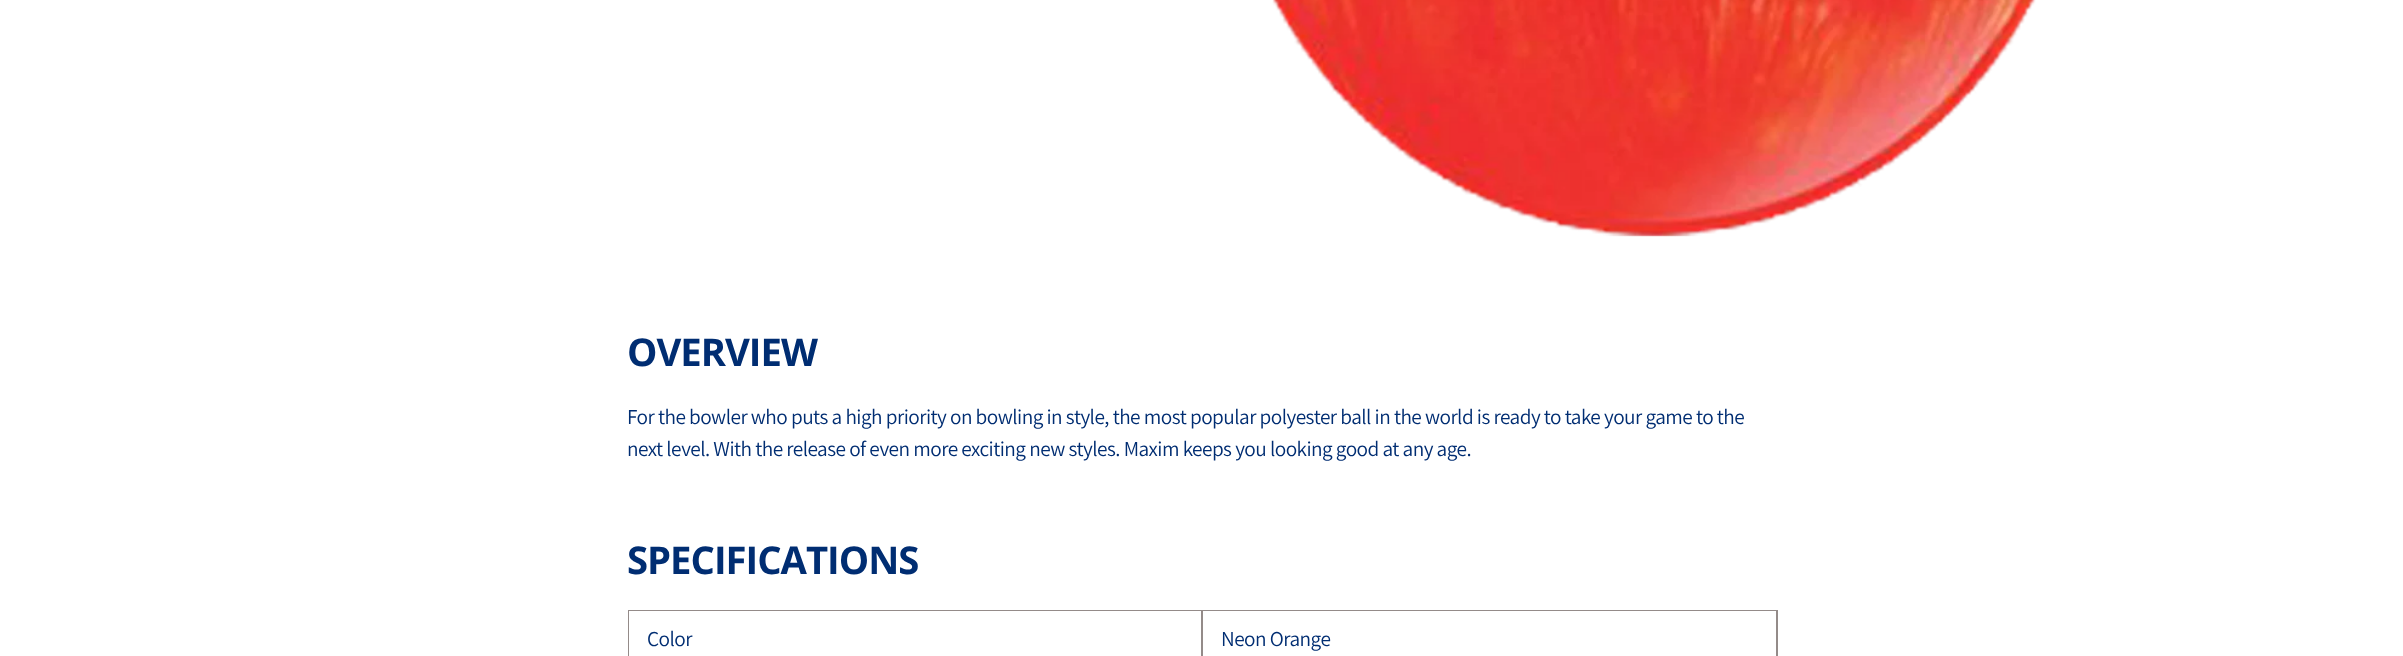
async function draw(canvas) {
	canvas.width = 2403;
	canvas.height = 656;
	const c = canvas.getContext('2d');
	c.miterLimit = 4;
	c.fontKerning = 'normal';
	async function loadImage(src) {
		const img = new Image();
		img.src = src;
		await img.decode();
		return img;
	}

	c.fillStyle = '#fff';
	c.fillRect(0, 0, 2403, 656);
	c.drawImage(await loadImage('img1.png'), 1272, 0, 764, 237);
	c.letterSpacing = '-1px';
	c.font = 'bold 38.25px Open Sans';
	c.fillStyle = '#002d72';
	c.fillText('OVERVIEW', 627, 366);
	c.letterSpacing = '-0.53px';
	c.font = '21.25px Assistant';
	c.fillText('For the bowler who puts a high priority on bowling in style, the most popular polyester ball in the world is ready to take your game to the', 627, 424);
	c.fillText('next level. With the release of even more exciting new styles. Maxim keeps you looking good at any age.', 627, 456);
	c.letterSpacing = '-1px';
	c.font = 'bold 38.25px Open Sans';
	c.fillText('SPECIFICATIONS', 627, 574);
	c.fillStyle = '#948b89';
	c.fillRect(628, 610, 1150, 46);
	c.fillStyle = '#fff';
	c.fillRect(629, 611, 572, 45);
	c.letterSpacing = '-0.53px';
	c.font = '21.25px Assistant';
	c.fillStyle = '#002d72';
	c.fillText('Color', 647, 646);
	c.fillStyle = '#fff';
	c.fillRect(1203, 611, 573, 45);
	c.fillStyle = '#002d72';
	c.fillText('Neon Orange', 1221, 646);
}

draw(document.querySelector('canvas'));
